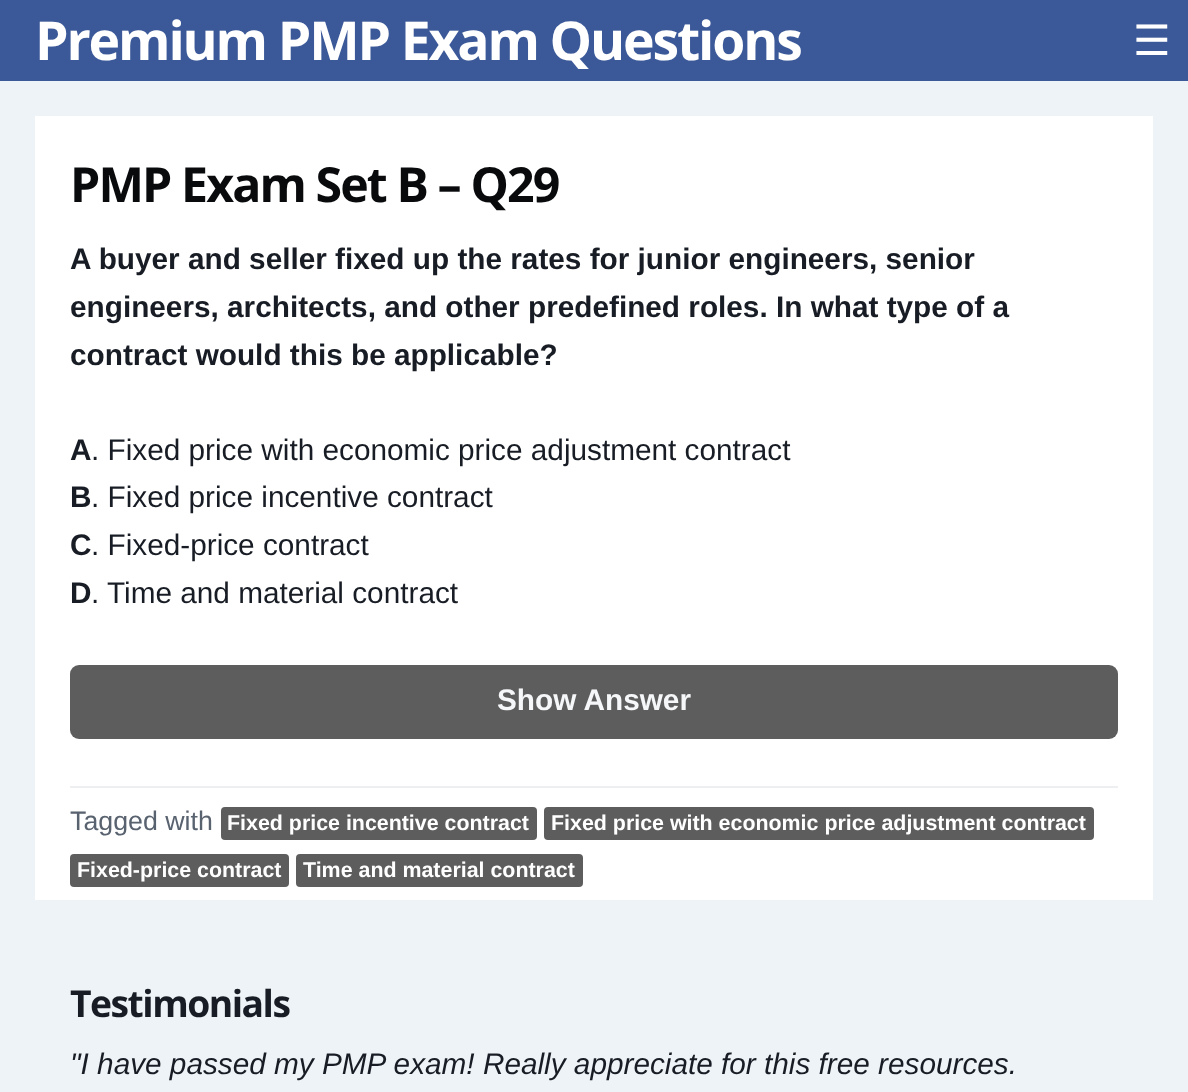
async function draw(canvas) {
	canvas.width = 1188;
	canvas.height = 1092;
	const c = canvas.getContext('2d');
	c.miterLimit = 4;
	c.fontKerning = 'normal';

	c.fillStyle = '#edf3f7';
	c.fillRect(0, 0, 1188, 1092);
	c.fillStyle = '#3b5998';
	c.fillRect(0, 0, 1188, 81);
	c.letterSpacing = '-2.15px';
	c.font = 'bold 53.5px Open Sans';
	c.fillStyle = '#fff';
	c.fillText('Premium PMP Exam Questions', 35, 60);
	c.letterSpacing = '0px';
	c.font = '42px DejaVu Sans';
	c.fillText('☰', 1133, 55);
	c.fillRect(35, 116, 1118, 784);
	c.letterSpacing = '-1.9px';
	c.font = 'bold 48.25px Open Sans';
	c.fillStyle = '#080a0c';
	c.fillText('PMP Exam Set B – Q29', 70, 202);
	c.letterSpacing = '0px';
	c.font = 'bold 29.75px Liberation Sans';
	c.fillStyle = '#181d25';
	for (const [text, x, y] of [
		['A buyer and seller fixed up the rates for junior engineers, senior', 70, 269],
		['engineers, architects, and other predefined roles. In what type of a', 70, 317],
		['contract would this be applicable?', 70, 365],
		['A', 70, 460],
	]) {
		c.fillText(text, x, y);
	}
	c.font = '29.75px Liberation Sans';
	c.fillText('. Fixed price with economic price adjustment contract', 91, 460);
	c.font = 'bold 29.75px Liberation Sans';
	c.fillText('B', 70, 507);
	c.font = '29.75px Liberation Sans';
	c.fillText('. Fixed price incentive contract', 91, 507);
	c.font = 'bold 29.75px Liberation Sans';
	c.fillText('C', 70, 555);
	c.font = '29.75px Liberation Sans';
	c.fillText('. Fixed-price contract', 91, 555);
	c.font = 'bold 29.75px Liberation Sans';
	c.fillText('D', 70, 603);
	c.font = '29.75px Liberation Sans';
	c.fillText('. Time and material contract', 91, 603);
	c.fillStyle = '#5d5d5d';
	c.beginPath();
	c.roundRect(70, 665, 1048, 74, 9);
	c.fill();
	c.font = 'bold 29.75px Liberation Sans';
	c.fillStyle = '#f6f7f9';
	c.fillText('Show Answer', 497, 710);
	c.fillStyle = '#eeeff1';
	c.fillRect(70, 786, 1048, 2);
	c.font = '26.75px Liberation Sans';
	c.fillStyle = '#59626f';
	c.fillText('Tagged with', 70, 830);
	c.fillStyle = '#5d5d5d';
	c.beginPath();
	c.roundRect(221, 807, 316, 33, 4);
	c.fill();
	c.font = 'bold 21.4px Liberation Sans';
	c.fillStyle = '#fff';
	c.fillText('Fixed price incentive contract', 227, 830);
	c.fillStyle = '#5d5d5d';
	c.beginPath();
	c.roundRect(544, 807, 550, 33, 4);
	c.fill();
	c.fillStyle = '#fff';
	c.fillText('Fixed price with economic price adjustment contract', 551, 830);
	c.fillStyle = '#5d5d5d';
	c.beginPath();
	c.roundRect(70, 854, 219, 33, 4);
	c.fill();
	c.fillStyle = '#fff';
	c.fillText('Fixed-price contract', 77, 877);
	c.fillStyle = '#5d5d5d';
	c.beginPath();
	c.roundRect(296, 854, 287, 33, 4);
	c.fill();
	c.fillStyle = '#fff';
	c.fillText('Time and material contract', 303, 877);
	c.letterSpacing = '-1.5px';
	c.font = 'bold 37.25px Open Sans';
	c.fillStyle = '#181d25';
	c.fillText('Testimonials', 70, 1017);
	c.letterSpacing = '0px';
	c.font = 'italic 29.75px Liberation Sans';
	c.fillText('"I have passed my PMP exam! Really appreciate for this free resources.', 70, 1074);
}

draw(document.querySelector('canvas'));
